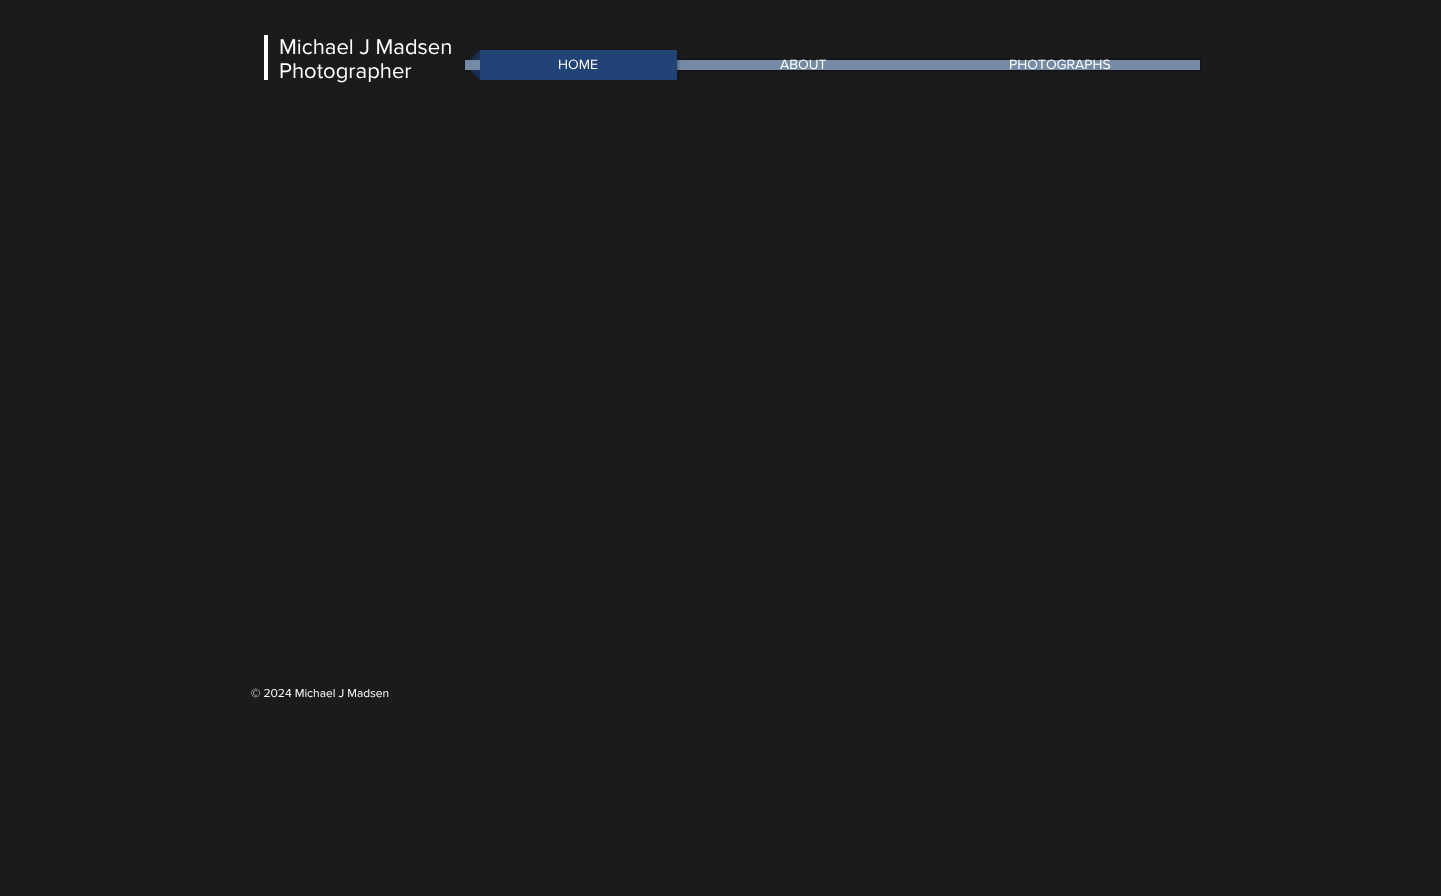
async function draw(canvas) {
	canvas.width = 1441;
	canvas.height = 896;
	const c = canvas.getContext('2d');
	c.miterLimit = 4;
	c.fontKerning = 'normal';

	c.fillStyle = '#1b1b1b';
	c.fillRect(0, 0, 1441, 896);
	c.fillStyle = '#fff';
	c.fillRect(264, 35, 4, 45);
	c.font = '22px "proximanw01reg"';
	c.fillText('Michael J Madsen', 279, 54);
	c.fillText('Photographer', 279, 78);
	c.fillStyle = '#000000b3';
	c.filter = 'blur(1.5px)';
	c.beginPath();
	c.rect(465, 60, 735, 10);
	c.fill();
	c.filter = 'none';
	c.fillStyle = '#758aa4';
	c.fillRect(465, 60, 735, 10);
	c.fillStyle = '#00000033';
	c.filter = 'blur(1px)';
	c.beginPath();
	c.rect(482, 50, 197, 30);
	c.fill();
	c.filter = 'none';
	c.fillStyle = '#182f52';
	c.beginPath();
	c.moveTo(480, 60);
	c.lineTo(470, 60);
	c.lineTo(480, 50);
	c.closePath();
	c.moveTo(470, 70);
	c.lineTo(480, 70);
	c.lineTo(480, 80);
	c.closePath();
	c.fill();
	c.fillStyle = '#224375';
	c.fillRect(480, 50, 197, 30);
	c.font = '14px "proximanw01reg"';
	c.fillStyle = '#fff';
	for (const [text, x, y] of [
		['HOME', 558, 69],
		['ABOUT', 780, 69],
		['PHOTOGRAPHS', 1009, 69],
	]) {
		c.fillText(text, x, y);
	}
	c.font = '12px "proximanw01reg"';
	c.fillText('© 2024 Michael J Madsen', 251, 697);
}

draw(document.querySelector('canvas'));
